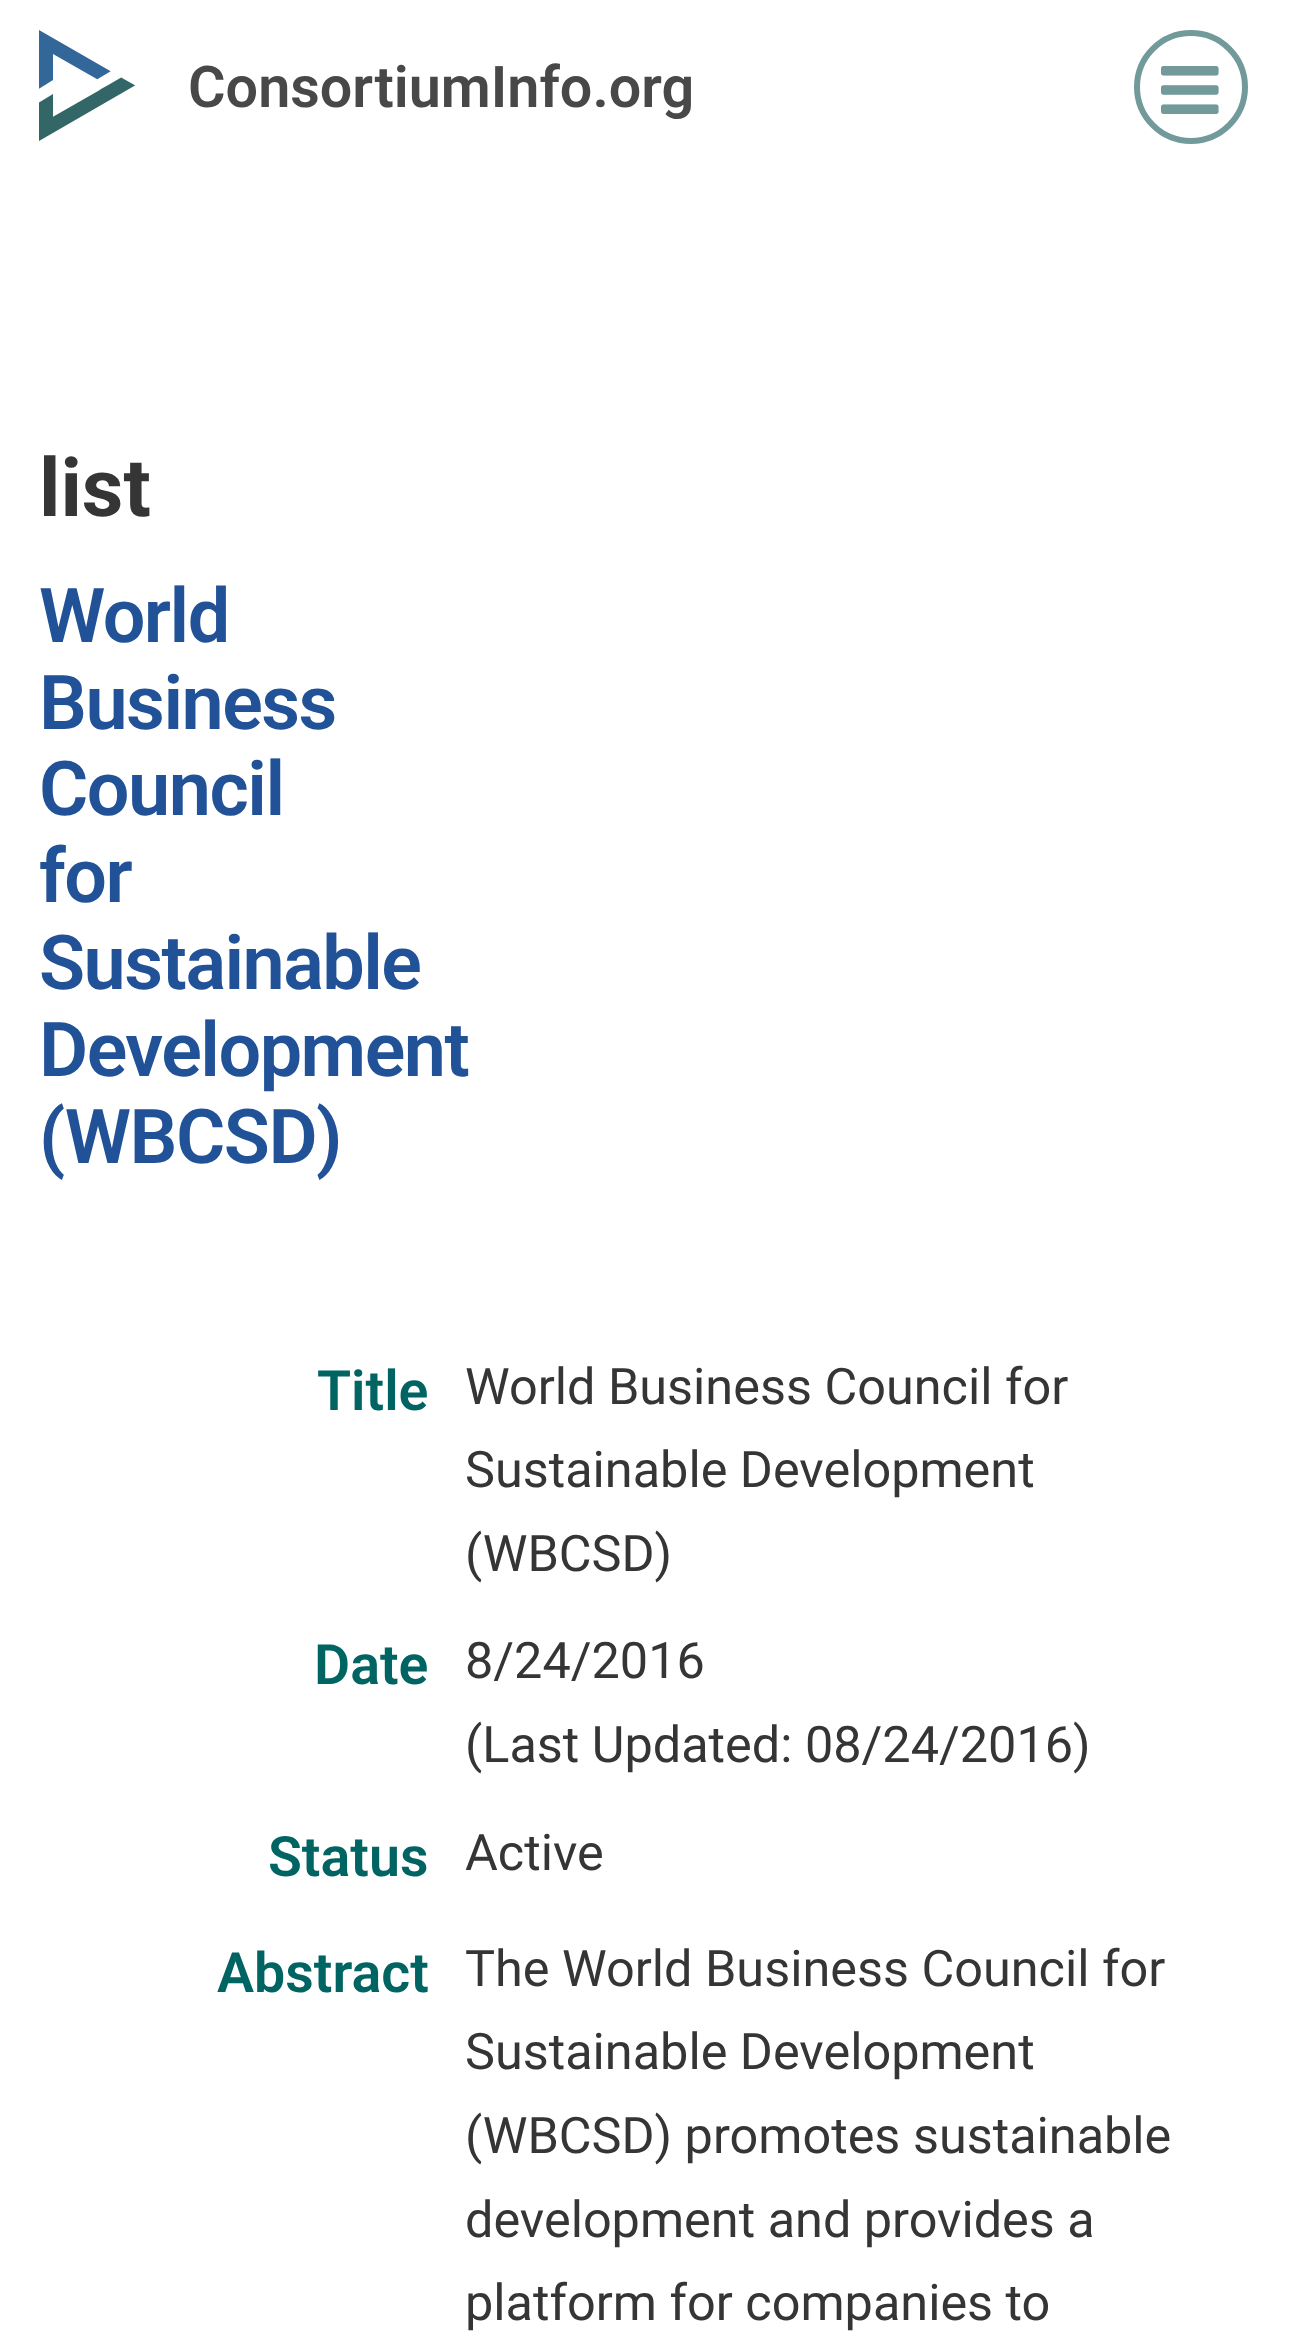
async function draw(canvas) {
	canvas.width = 1298;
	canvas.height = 2352;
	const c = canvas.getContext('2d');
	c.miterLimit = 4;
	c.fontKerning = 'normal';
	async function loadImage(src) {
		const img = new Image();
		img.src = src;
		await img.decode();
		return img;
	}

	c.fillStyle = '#fff';
	c.fillRect(0, 0, 1298, 2352);
	c.drawImage(await loadImage('img1.png'), 39, 30, 96, 111);
	c.font = '600 57.5px Roboto';
	c.fillStyle = '#484848';
	c.fillText('ConsortiumInfo.org', 188, 107);
	c.beginPath();
	c.arc(1191, 87, 54, 0, 2 * Math.PI);
	c.strokeStyle = '#739a9b';
	c.lineWidth = 6;
	c.stroke();
	c.drawImage(await loadImage('img2.png'), 1161, 66, 58, 48);
	c.font = 'bold 81px Roboto';
	c.fillStyle = '#343534';
	c.fillText('list', 39, 516);
	c.letterSpacing = '-1.5px';
	c.font = '600 75.5px Roboto';
	c.fillStyle = '#215298';
	for (const [text, x, y] of [
		['World', 39, 642],
		['Business', 39, 729],
		['Council', 39, 815],
		['for', 39, 902],
		['Sustainable', 39, 989],
		['Development', 39, 1076],
		['(WBCSD)', 39, 1163],
	]) {
		c.fillText(text, x, y);
	}
	c.letterSpacing = '0px';
	c.font = '600 55.5px Roboto';
	c.fillStyle = '#006463';
	c.fillText('Title', 317, 1410);
	c.font = '50.4px Roboto';
	c.fillStyle = '#343534';
	for (const [text, x, y] of [
		['World Business Council for', 465, 1404],
		['Sustainable Development', 465, 1487],
		['(WBCSD)', 465, 1571],
	]) {
		c.fillText(text, x, y);
	}
	c.font = '600 55.5px Roboto';
	c.fillStyle = '#006463';
	c.fillText('Date', 314, 1684);
	c.font = '50.4px Roboto';
	c.fillStyle = '#343534';
	c.fillText('8/24/2016', 465, 1678);
	c.fillText('(Last Updated: 08/24/2016)', 465, 1762);
	c.font = '600 55.5px Roboto';
	c.fillStyle = '#006463';
	c.fillText('Status', 268, 1876);
	c.font = '50.4px Roboto';
	c.fillStyle = '#343534';
	c.fillText('Active', 465, 1870);
	c.font = '600 55.5px Roboto';
	c.fillStyle = '#006463';
	c.fillText('Abstract', 217, 1992);
	c.font = '50.4px Roboto';
	c.fillStyle = '#343534';
	for (const [text, x, y] of [
		['The World Business Council for', 465, 1986],
		['Sustainable Development', 465, 2069],
		['(WBCSD) promotes sustainable', 465, 2153],
		['development and provides a', 465, 2237],
		['platform for companies to', 465, 2320],
	]) {
		c.fillText(text, x, y);
	}
}

draw(document.querySelector('canvas'));
